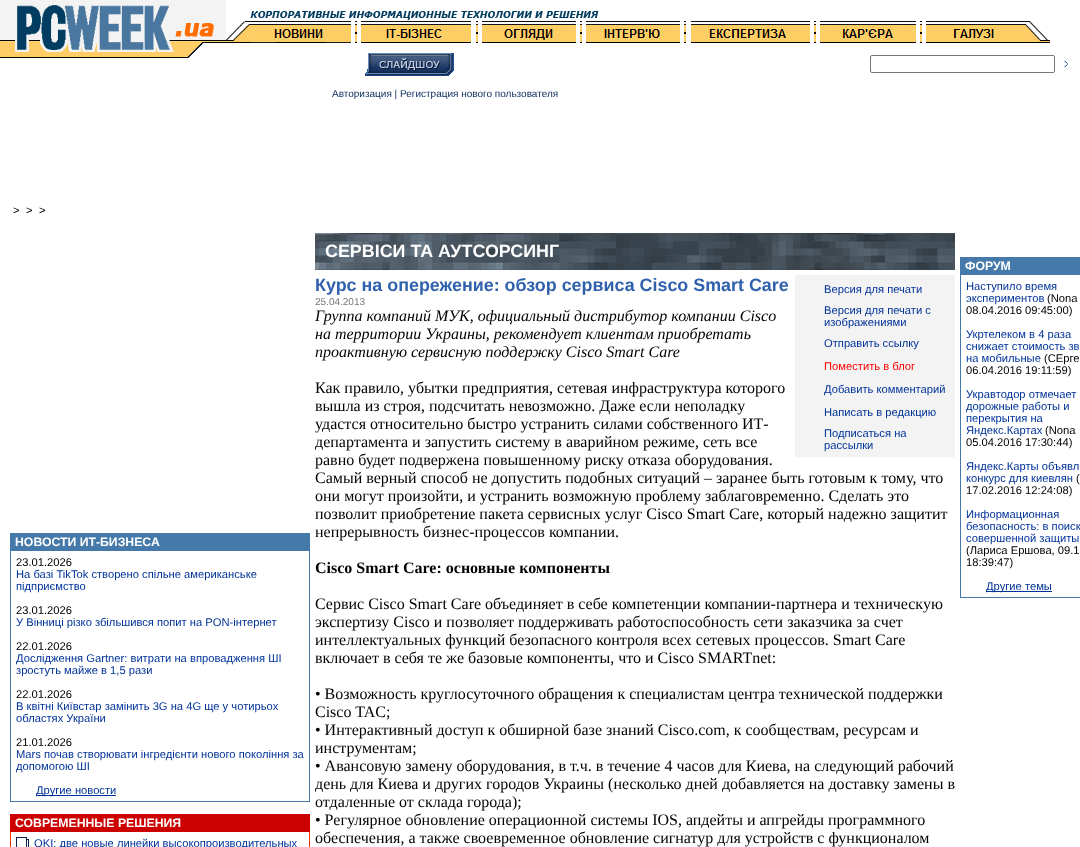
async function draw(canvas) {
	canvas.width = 1080;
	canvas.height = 847;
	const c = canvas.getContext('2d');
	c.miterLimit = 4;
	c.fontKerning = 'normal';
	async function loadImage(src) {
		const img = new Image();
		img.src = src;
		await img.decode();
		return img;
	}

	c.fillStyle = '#fff';
	c.fillRect(0, 0, 1080, 847);
	c.drawImage(await loadImage('img1.png'), 0, 0, 226, 58);
	c.drawImage(await loadImage('img2.png'), 250, 11, 349, 9);
	c.drawImage(await loadImage('img3.png'), 226, 21, 24, 22);
	c.drawImage(await loadImage('img4.png'), 250, 21, 101, 22);
	c.drawImage(await loadImage('img5.png'), 355, 21, 2, 22);
	c.drawImage(await loadImage('img6.png'), 361, 21, 110, 22);
	c.drawImage(await loadImage('img5.png'), 476, 21, 2, 22);
	c.drawImage(await loadImage('img7.png'), 482, 21, 94, 22);
	c.drawImage(await loadImage('img5.png'), 580, 21, 2, 22);
	c.drawImage(await loadImage('img8.png'), 586, 21, 94, 22);
	c.drawImage(await loadImage('img5.png'), 684, 21, 2, 22);
	c.drawImage(await loadImage('img9.png'), 691, 21, 119, 22);
	c.drawImage(await loadImage('img5.png'), 814, 21, 2, 22);
	c.drawImage(await loadImage('img10.png'), 820, 21, 96, 22);
	c.drawImage(await loadImage('img5.png'), 920, 21, 2, 22);
	c.drawImage(await loadImage('img11.png'), 926, 21, 98, 22);
	c.drawImage(await loadImage('img12.png'), 1024, 21, 24, 22);
	c.drawImage(await loadImage('img13.png'), 1048, 40, 2, 3);
	c.drawImage(await loadImage('img14.png'), 365, 53, 89, 23);
	c.beginPath();
	c.roundRect(870.5, 55.5, 184, 17, 1.5);
	c.strokeStyle = '#767676';
	c.stroke();
	c.drawImage(await loadImage('img15.png'), 1064, 61, 4, 6);
	c.font = '10px Liberation Sans';
	c.fillStyle = '#113060';
	c.fillText('Авторизация | Регистрация нового пользователя', 332, 97);
	c.font = '11.2px Liberation Sans';
	c.fillStyle = '#000';
	for (const [text, x, y] of [
		['>', 13, 214],
		['>', 26, 214],
		['>', 39, 214],
	]) {
		c.fillText(text, x, y);
	}
	c.drawImage(await loadImage('img16.png'), 315, 233, 640, 37);
	c.font = 'bold 17.9px Liberation Sans';
	c.fillStyle = '#fff';
	c.fillText('СЕРВІСИ ТА АУТСОРСИНГ', 325, 257);
	c.fillStyle = '#3061ad';
	c.fillText('Курс на опережение: обзор сервиса Cisco Smart Care', 315, 291);
	c.fillStyle = '#f3f3f3';
	c.fillRect(795, 275, 160, 182);
	c.font = '11.2px Liberation Sans';
	c.fillStyle = '#039';
	for (const [text, x, y] of [
		['Версия для печати', 824, 293],
		['Версия для печати с', 824, 314],
		['изображениями', 824, 326],
		['Отправить ссылку', 824, 347],
	]) {
		c.fillText(text, x, y);
	}
	c.fillStyle = '#f00';
	c.fillText('Поместить в блог', 824, 370);
	c.fillStyle = '#039';
	for (const [text, x, y] of [
		['Добавить комментарий', 824, 393],
		['Написать в редакцию', 824, 416],
		['Подписаться на', 824, 437],
		['рассылки', 824, 449],
	]) {
		c.fillText(text, x, y);
	}
	c.font = '10px Liberation Sans';
	c.fillStyle = '#777';
	c.fillText('25.04.2013', 315, 305);
	c.font = 'italic 16px Liberation Serif';
	c.fillStyle = '#000';
	for (const [text, x, y] of [
		['Группа компаний МУК, официальный дистрибутор компании Cisco', 315, 321],
		['на территории Украины, рекомендует клиентам приобретать', 315, 339],
		['проактивную сервисную поддержку Cisco Smart Care', 315, 357],
	]) {
		c.fillText(text, x, y);
	}
	c.font = '16px Liberation Serif';
	for (const [text, x, y] of [
		['Как правило, убытки предприятия, сетевая инфраструктура которого', 315, 393],
		['вышла из строя, подсчитать невозможно. Даже если неполадку', 315, 411],
		['удастся относительно быстро устранить силами собственного ИТ-', 315, 429],
		['департамента и запустить систему в аварийном режиме, сеть все', 315, 447],
		['равно будет подвержена повышенному риску отказа оборудования.', 315, 465],
		['Самый верный способ не допустить подобных ситуаций – заранее быть готовым к тому, что', 315, 483],
		['они могут произойти, и устранить возможную проблему заблаговременно. Сделать это', 315, 501],
		['позволит приобретение пакета сервисных услуг Cisco Smart Care, который надежно защитит', 315, 519],
		['непрерывность бизнес-процессов компании.', 315, 537],
	]) {
		c.fillText(text, x, y);
	}
	c.font = 'bold 16px Liberation Serif';
	c.fillText('Cisco Smart Care: основные компоненты', 315, 573);
	c.font = '16px Liberation Serif';
	for (const [text, x, y] of [
		['Сервис Cisco Smart Care объединяет в себе компетенции компании-партнера и техническую', 315, 609],
		['экспертизу Cisco и позволяет поддерживать работоспособность сети заказчика за счет', 315, 627],
		['интеллектуальных функций безопасного контроля всех сетевых процессов. Smart Care', 315, 645],
		['включает в себя те же базовые компоненты, что и Cisco SMARTnet:', 315, 663],
		['• Возможность круглосуточного обращения к специалистам центра технической поддержки', 315, 699],
		['Cisco TAC;', 315, 717],
		['• Интерактивный доступ к обширной базе знаний Cisco.com, к сообществам, ресурсам и', 315, 735],
		['инструментам;', 315, 753],
		['• Авансовую замену оборудования, в т.ч. в течение 4 часов для Киева, на следующий рабочий', 315, 771],
		['день для Киева и других городов Украины (несколько дней добавляется на доставку замены в', 315, 789],
		['отдаленные от склада города);', 315, 807],
		['• Регулярное обновление операционной системы IOS, апдейты и апгрейды программного', 315, 825],
		['обеспечения, а также своевременное обновление сигнатур для устройств с функционалом', 315, 843],
	]) {
		c.fillText(text, x, y);
	}
	c.fillStyle = '#4579a9';
	c.fillRect(960, 257, 120, 18);
	c.font = 'bold 12.25px Liberation Sans';
	c.fillStyle = '#fff';
	c.fillText('ФОРУМ', 965, 270);
	c.fillStyle = '#4579a9';
	c.fillRect(960, 597, 120, 1);
	c.fillRect(960, 275, 1, 323);
	c.font = '11.2px Liberation Sans';
	c.fillStyle = '#039';
	c.fillText('Наступило время', 966, 290);
	c.fillText('экспериментов', 966, 302);
	c.fillStyle = '#000';
	c.fillText('(Nona', 1047, 302);
	c.fillText('08.04.2016 09:45:00)', 966, 314);
	c.fillStyle = '#039';
	for (const [text, x, y] of [
		['Укртелеком в 4 раза', 966, 338],
		['снижает стоимость зв', 966, 350],
		['на мобильные', 966, 362],
	]) {
		c.fillText(text, x, y);
	}
	c.fillStyle = '#000';
	c.fillText('(СЕрге', 1044, 362);
	c.fillText('06.04.2016 19:11:59)', 966, 374);
	c.fillStyle = '#039';
	for (const [text, x, y] of [
		['Укравтодор отмечает', 966, 398],
		['дорожные работы и', 966, 410],
		['перекрытия на', 966, 422],
		['Яндекс.Картах', 966, 434],
	]) {
		c.fillText(text, x, y);
	}
	c.fillStyle = '#000';
	c.fillText('(Nona', 1045, 434);
	c.fillText('05.04.2016 17:30:44)', 966, 446);
	c.fillStyle = '#039';
	c.fillText('Яндекс.Карты объявл', 966, 470);
	c.fillText('конкурс для киевлян', 966, 482);
	c.fillStyle = '#000';
	c.fillText('(', 1076, 482);
	c.fillText('17.02.2016 12:24:08)', 966, 494);
	c.fillStyle = '#039';
	for (const [text, x, y] of [
		['Информационная', 966, 518],
		['безопасность: в поиск', 966, 530],
		['совершенной защиты', 966, 542],
	]) {
		c.fillText(text, x, y);
	}
	c.fillStyle = '#000';
	c.fillText('(Лариса Ершова, 09.1', 966, 554);
	c.fillText('18:39:47)', 966, 566);
	c.fillStyle = '#039';
	c.fillRect(986, 591, 66, 1);
	c.fillText('Другие темы', 986, 590);
	c.fillStyle = '#4579a9';
	c.fillRect(10, 533, 300, 18);
	c.font = 'bold 12.25px Liberation Sans';
	c.fillStyle = '#fff';
	c.fillText('НОВОСТИ ИТ-БИЗНЕСА', 15, 546);
	for (const [x, y, w, h, color] of [
		[309, 551, 1, 251, '#4579a9'],
		[10, 801, 300, 1, '#4579a9'],
		[10, 551, 1, 251, '#4579a9'],
	]) {
		c.fillStyle = color;
		c.fillRect(x, y, w, h);
	}
	c.font = '11.2px Liberation Sans';
	c.fillStyle = '#000';
	c.fillText('23.01.2026', 16, 566);
	c.fillStyle = '#039';
	c.fillText('На базі TikTok створено спільне американське', 16, 578);
	c.fillText('підприємство', 16, 590);
	c.fillStyle = '#000';
	c.fillText('23.01.2026', 16, 614);
	c.fillStyle = '#039';
	c.fillText('У Вінниці різко збільшився попит на PON-інтернет', 16, 626);
	c.fillStyle = '#000';
	c.fillText('22.01.2026', 16, 650);
	c.fillStyle = '#039';
	c.fillText('Дослідження Gartner: витрати на впровадження ШІ', 16, 662);
	c.fillText('зростуть майже в 1,5 рази', 16, 674);
	c.fillStyle = '#000';
	c.fillText('22.01.2026', 16, 698);
	c.fillStyle = '#039';
	c.fillText('В квітні Київстар замінить 3G на 4G ще у чотирьох', 16, 710);
	c.fillText('областях України', 16, 722);
	c.fillStyle = '#000';
	c.fillText('21.01.2026', 16, 746);
	c.fillStyle = '#039';
	c.fillText('Mars почав створювати інгредієнти нового покоління за', 16, 758);
	c.fillText('допомогою ШІ', 16, 770);
	c.fillRect(36, 795, 80, 1);
	c.fillText('Другие новости', 36, 794);
	c.fillStyle = '#c00';
	c.fillRect(10, 814, 300, 18);
	c.font = 'bold 12.25px Liberation Sans';
	c.fillStyle = '#fff';
	c.fillText('СОВРЕМЕННЫЕ РЕШЕНИЯ', 15, 827);
	c.fillStyle = '#f30';
	c.fillRect(309, 832, 1, 15);
	c.fillRect(10, 832, 1, 15);
	c.drawImage(await loadImage('img17.png'), 16, 837, 13, 10);
	c.font = '11.2px Liberation Sans';
	c.fillStyle = '#039';
	c.fillText('OKI: две новые линейки высокопроизводительных', 34, 847);
}

draw(document.querySelector('canvas'));
